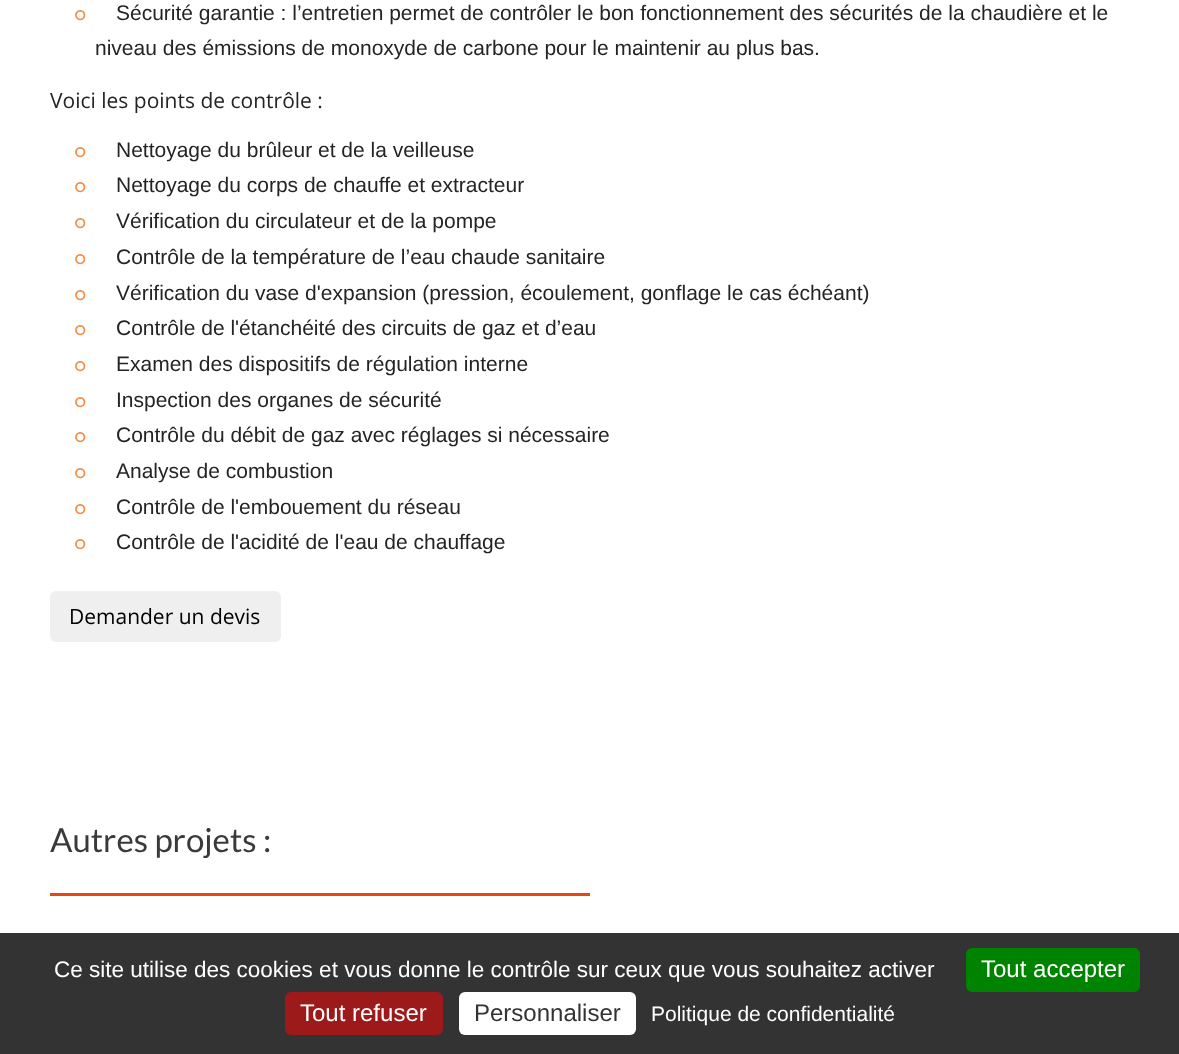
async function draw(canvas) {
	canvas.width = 1179;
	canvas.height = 1054;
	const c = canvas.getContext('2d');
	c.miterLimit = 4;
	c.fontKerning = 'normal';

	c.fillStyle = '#fff';
	c.fillRect(0, 0, 1179, 1054);
	c.font = 'bold 21px Padauk';
	c.fillStyle = '#f28e47';
	c.fillText('၀', 74, 20);
	c.font = '21px Liberation Sans';
	c.fillStyle = '#242424';
	c.fillText('Sécurité garantie : l’entretien permet de contrôler le bon fonctionnement des sécurités de la chaudière et le', 116, 20);
	c.fillText('niveau des émissions de monoxyde de carbone pour le maintenir au plus bas.', 95, 55);
	c.font = '21px Open Sans';
	c.fillText('Voici les points de contrôle :', 50, 108);
	c.font = 'bold 21px Padauk';
	c.fillStyle = '#f28e47';
	c.fillText('၀', 74, 157);
	c.font = '21px Liberation Sans';
	c.fillStyle = '#242424';
	c.fillText('Nettoyage du brûleur et de la veilleuse', 116, 157);
	c.font = 'bold 21px Padauk';
	c.fillStyle = '#f28e47';
	c.fillText('၀', 74, 192);
	c.font = '21px Liberation Sans';
	c.fillStyle = '#242424';
	c.fillText('Nettoyage du corps de chauffe et extracteur', 116, 192);
	c.font = 'bold 21px Padauk';
	c.fillStyle = '#f28e47';
	c.fillText('၀', 74, 228);
	c.font = '21px Liberation Sans';
	c.fillStyle = '#242424';
	c.fillText('Vérification du circulateur et de la pompe', 116, 228);
	c.font = 'bold 21px Padauk';
	c.fillStyle = '#f28e47';
	c.fillText('၀', 74, 264);
	c.font = '21px Liberation Sans';
	c.fillStyle = '#242424';
	c.fillText('Contrôle de la température de l’eau chaude sanitaire', 116, 264);
	c.font = 'bold 21px Padauk';
	c.fillStyle = '#f28e47';
	c.fillText('၀', 74, 300);
	c.font = '21px Liberation Sans';
	c.fillStyle = '#242424';
	c.fillText('Vérification du vase d\'expansion (pression, écoulement, gonflage le cas échéant)', 116, 300);
	c.font = 'bold 21px Padauk';
	c.fillStyle = '#f28e47';
	c.fillText('၀', 74, 335);
	c.font = '21px Liberation Sans';
	c.fillStyle = '#242424';
	c.fillText('Contrôle de l\'étanchéité des circuits de gaz et d’eau', 116, 335);
	c.font = 'bold 21px Padauk';
	c.fillStyle = '#f28e47';
	c.fillText('၀', 74, 371);
	c.font = '21px Liberation Sans';
	c.fillStyle = '#242424';
	c.fillText('Examen des dispositifs de régulation interne', 116, 371);
	c.font = 'bold 21px Padauk';
	c.fillStyle = '#f28e47';
	c.fillText('၀', 74, 407);
	c.font = '21px Liberation Sans';
	c.fillStyle = '#242424';
	c.fillText('Inspection des organes de sécurité', 116, 407);
	c.font = 'bold 21px Padauk';
	c.fillStyle = '#f28e47';
	c.fillText('၀', 74, 442);
	c.font = '21px Liberation Sans';
	c.fillStyle = '#242424';
	c.fillText('Contrôle du débit de gaz avec réglages si nécessaire', 116, 442);
	c.font = 'bold 21px Padauk';
	c.fillStyle = '#f28e47';
	c.fillText('၀', 74, 478);
	c.font = '21px Liberation Sans';
	c.fillStyle = '#242424';
	c.fillText('Analyse de combustion', 116, 478);
	c.font = 'bold 21px Padauk';
	c.fillStyle = '#f28e47';
	c.fillText('၀', 74, 514);
	c.font = '21px Liberation Sans';
	c.fillStyle = '#242424';
	c.fillText('Contrôle de l\'embouement du réseau', 116, 514);
	c.font = 'bold 21px Padauk';
	c.fillStyle = '#f28e47';
	c.fillText('၀', 74, 549);
	c.font = '21px Liberation Sans';
	c.fillStyle = '#242424';
	c.fillText('Contrôle de l\'acidité de l\'eau de chauffage', 116, 549);
	c.fillStyle = '#efefef';
	c.beginPath();
	c.roundRect(50, 591, 231, 51, 6);
	c.fill();
	c.font = '21px Open Sans';
	c.fillStyle = '#000';
	c.fillText('Demander un devis', 69, 624);
	c.font = '33px Lato';
	c.fillStyle = '#3a3a3a';
	c.fillText('Autres projets :', 50, 852);
	c.fillStyle = '#e7460f';
	c.fillRect(50, 893, 540, 3);
	c.fillStyle = '#333';
	c.fillRect(0, 933, 1179, 121);
	c.font = '22.5px Liberation Sans';
	c.fillStyle = '#fff';
	c.fillText('Ce site utilise des cookies et vous donne le contrôle sur ceux que vous souhaitez activer', 54, 977);
	c.fillStyle = '#008300';
	c.beginPath();
	c.roundRect(966, 948, 174, 44, 6);
	c.fill();
	c.font = '24px Liberation Sans';
	c.fillStyle = '#fff';
	c.fillText('Tout accepter', 981, 977);
	c.fillStyle = '#9c1a1a';
	c.beginPath();
	c.roundRect(285, 992, 158, 43, 6);
	c.fill();
	c.fillStyle = '#fff';
	c.fillText('Tout refuser', 300, 1021);
	c.beginPath();
	c.roundRect(459, 992, 177, 43, 6);
	c.fill();
	c.fillStyle = '#333';
	c.fillText('Personnaliser', 474, 1021);
	c.font = '21px Liberation Sans';
	c.fillStyle = '#fff';
	c.fillText('Politique de confidentialité', 651, 1021);
}

draw(document.querySelector('canvas'));
